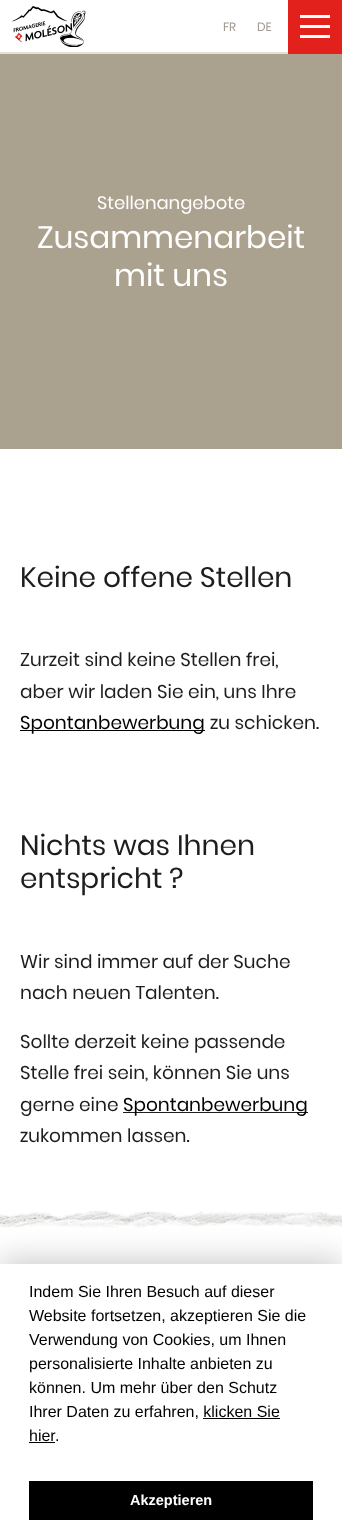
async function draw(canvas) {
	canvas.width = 342;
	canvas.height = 1536;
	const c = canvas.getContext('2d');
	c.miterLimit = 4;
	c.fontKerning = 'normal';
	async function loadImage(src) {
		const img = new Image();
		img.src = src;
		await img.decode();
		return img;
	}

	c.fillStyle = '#fff';
	c.fillRect(0, 0, 342, 1536);
	c.fillStyle = '#e6e0d9';
	c.fillRect(0, 52, 288, 2);
	c.drawImage(await loadImage('img1.png'), 12, 6, 74, 41);
	c.font = '12px Poppins';
	c.fillStyle = '#a19a92';
	c.fillText('FR', 223, 31);
	c.fillText('DE', 257, 31);
	for (const [x, y, w, h, color] of [
		[288, 0, 54, 54, '#e2211c'],
		[300, 35, 30, 3, '#fff'],
		[300, 15, 30, 3, '#fff'],
		[300, 25, 30, 3, '#fff'],
		[0, 54, 342, 395, '#aba18f'],
	]) {
		c.fillStyle = color;
		c.fillRect(x, y, w, h);
	}
	c.font = '18px Poppins';
	c.fillStyle = '#fff';
	c.fillText('Stellenangebote', 97, 209);
	c.font = '31px Poppins';
	c.fillText('Zusammenarbeit', 37, 248);
	c.fillText('mit uns', 114, 286);
	c.font = '28px Poppins';
	c.fillStyle = '#1d1d1b';
	c.fillText('Keine offene Stellen', 20, 587);
	c.font = '18.5px Poppins';
	c.fillText('Zurzeit sind keine Stellen frei,', 20, 666);
	c.fillText('aber wir laden Sie ein, uns Ihre', 20, 698);
	c.fillStyle = '#000';
	c.fillRect(20, 730, 185, 1);
	c.fillText('Spontanbewerbung', 20, 729);
	c.fillStyle = '#1d1d1b';
	c.fillText('zu schicken.', 210, 729);
	c.font = '28px Poppins';
	c.fillText('Nichts was Ihnen', 20, 855);
	c.fillText('entspricht ?', 20, 888);
	c.font = '18.5px Poppins';
	for (const [text, x, y] of [
		['Wir sind immer auf der Suche', 20, 968],
		['nach neuen Talenten.', 20, 999],
		['Sollte derzeit keine passende', 20, 1048],
		['Stelle frei sein, können Sie uns', 20, 1079],
		['gerne eine', 20, 1111],
	]) {
		c.fillText(text, x, y);
	}
	c.fillRect(123, 1112, 185, 1);
	c.fillStyle = '#000';
	c.fillText('Spontanbewerbung', 123, 1111);
	c.fillStyle = '#1d1d1b';
	c.fillText('zukommen lassen.', 20, 1142);
	c.drawImage(await loadImage('img2.png'), 0, 1211, 342, 17);
	c.fillStyle = '#00000033';
	c.filter = 'blur(15px)';
	c.beginPath();
	c.rect(0, 1259, 342, 272);
	c.fill();
	c.filter = 'none';
	c.fillStyle = '#fff';
	c.fillRect(0, 1264, 342, 272);
	c.font = '16px Liberation Sans';
	c.fillStyle = '#000';
	for (const [text, x, y] of [
		['Indem Sie Ihren Besuch auf dieser', 29, 1297],
		['Website fortsetzen, akzeptieren Sie die', 29, 1321],
		['Verwendung von Cookies, um Ihnen', 29, 1345],
		['personalisierte Inhalte anbieten zu', 29, 1369],
		['können. Um mehr über den Schutz', 29, 1393],
		['Ihrer Daten zu erfahren, klicken Sie', 29, 1417],
		['hier', 29, 1441],
	]) {
		c.fillText(text, x, y);
	}
	c.fillRect(203, 1418, 77, 1);
	c.fillRect(29, 1442, 26, 1);
	c.fillText('.', 55, 1441);
	c.fillRect(29, 1481, 284, 39);
	c.font = 'bold 14.5px Liberation Sans';
	c.fillStyle = '#fff';
	c.fillText('Akzeptieren', 130, 1505);
}

draw(document.querySelector('canvas'));
